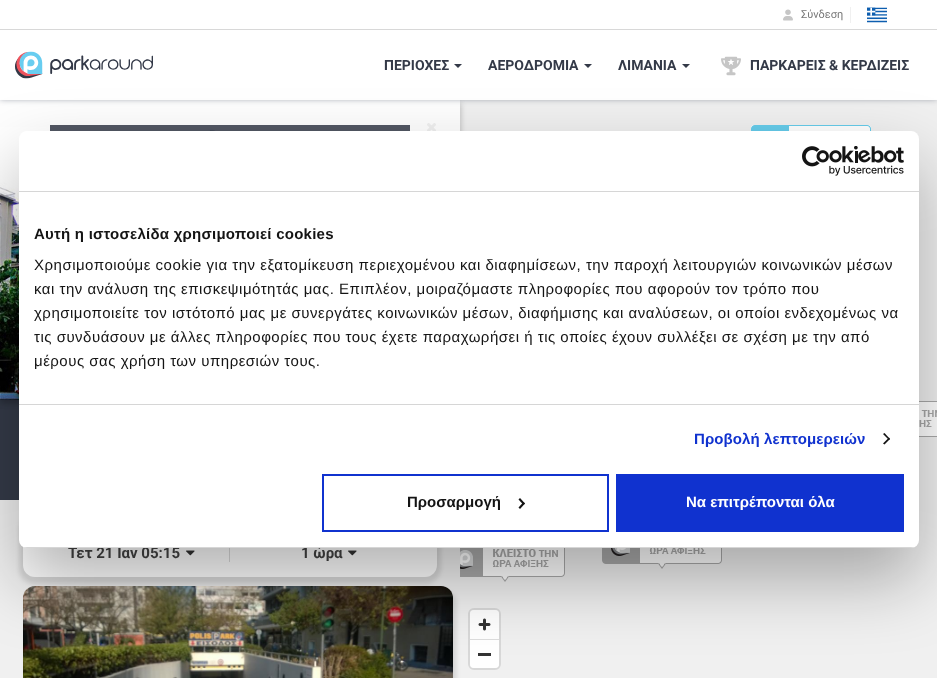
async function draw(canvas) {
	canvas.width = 937;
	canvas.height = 678;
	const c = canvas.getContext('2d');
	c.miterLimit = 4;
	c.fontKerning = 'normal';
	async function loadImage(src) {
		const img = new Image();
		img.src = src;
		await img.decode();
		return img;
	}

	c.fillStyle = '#f0f0f0';
	c.fillRect(0, 0, 937, 678);
	c.fillStyle = '#343a48';
	c.fillRect(0, 400, 19, 100);
	c.fillStyle = '#00000024';
	c.filter = 'blur(3px)';
	c.beginPath();
	c.rect(0, 103, 460, 300);
	c.fill();
	c.filter = 'none';
	c.fillStyle = '#0000001c';
	c.filter = 'blur(3px)';
	c.beginPath();
	c.rect(0, 103, 460, 300);
	c.fill();
	c.filter = 'none';
	c.fillStyle = '#fefefe';
	c.fillRect(0, 100, 460, 27);
	c.fillStyle = '#37425780';
	c.filter = 'blur(3px)';
	c.beginPath();
	c.rect(0, -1, 937, 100);
	c.fill();
	c.filter = 'none';
	c.fillStyle = '#fff';
	c.fillRect(0, 0, 937, 100);
	c.fillStyle = '#d8d8d8';
	c.fillRect(0, 29, 937, 1);
	c.drawImage(await loadImage('img1.png'), 783, 9, 10, 12);
	c.font = '11px Roboto';
	c.fillStyle = '#777';
	c.fillText('Σύνδεση', 801, 18);
	c.fillStyle = '#f0f0f0';
	c.fillRect(850, 7, 1, 16);
	c.drawImage(await loadImage('img2.png'), 867, 7, 20, 16);
	c.drawImage(await loadImage('img3.png'), 15, 51, 138, 28);
	c.font = 'bold 14px Roboto';
	c.fillStyle = '#343a48';
	c.fillText('ΠΕΡΙΟΧΕΣ', 384, 70);
	c.beginPath();
	c.moveTo(454, 64);
	c.lineTo(462, 64);
	c.lineTo(458, 68);
	c.closePath();
	c.fill();
	c.fillText('ΑΕΡΟΔΡΟΜΙA', 488, 70);
	c.beginPath();
	c.moveTo(584, 64);
	c.lineTo(592, 64);
	c.lineTo(588, 68);
	c.closePath();
	c.fill();
	c.fillText('ΛΙΜΑΝΙΑ', 618, 70);
	c.beginPath();
	c.moveTo(682, 64);
	c.lineTo(690, 64);
	c.lineTo(686, 68);
	c.closePath();
	c.fill();
	c.drawImage(await loadImage('img4.png'), 721, 56, 20, 20);
	c.fillText('ΠΑΡΚΑΡΕΙΣ & ΚΕΡΔΙΖΕΙΣ', 750, 70);
	c.drawImage(await loadImage('img6.png'), 0, 127, 460, 273);
	c.fillStyle = '#343a48d9';
	c.fillRect(50, 125, 360, 6);
	c.drawImage(await loadImage('img7.png'), 427, 123, 9, 8);
	c.drawImage(await loadImage('img8.png'), 751, 125, 120, 6);
	c.drawImage(await loadImage('img9.png'), 919, 401, 18, 36);
	c.drawImage(await loadImage('img10.png'), 460, 548, 105, 34);
	c.drawImage(await loadImage('img11.png'), 602, 548, 120, 21);
	c.beginPath();
	c.roundRect(469, 609, 31, 60, 5);
	c.strokeStyle = '#d8d8d8';
	c.lineWidth = 2;
	c.stroke();
	c.fillStyle = '#fff';
	c.beginPath();
	c.roundRect(470, 610, 29, 58, 4);
	c.fill();
	c.drawImage(await loadImage('img12.png'), 478, 618, 13, 13);
	c.fillStyle = '#ddd';
	c.fillRect(470, 639, 29, 1);
	c.fillStyle = '#333';
	c.fillRect(478, 653, 13, 3);
	c.fillStyle = '#0000001f';
	c.filter = 'blur(2.5px)';
	c.beginPath();
	c.roundRect(26, 591, 430, 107, 12);
	c.fill();
	c.filter = 'none';
	c.drawImage(await loadImage('img14.png'), 23, 586, 430, 92);
	c.fillStyle = '#0000001a';
	c.filter = 'blur(2px)';
	c.beginPath();
	c.roundRect(19, 514, 422, 70, 16);
	c.fill();
	c.filter = 'none';
	c.fillStyle = '#fff';
	c.beginPath();
	c.roundRect(23, 515, 414, 62, 12);
	c.fill();
	c.drawImage(await loadImage('img13.png'), 186, 550, 9, 6);
	c.fillStyle = '#dbdbdb';
	c.fillRect(229, 548, 1, 14);
	c.drawImage(await loadImage('img13.png'), 348, 550, 9, 6);
	c.fillStyle = '#0000004d';
	c.filter = 'blur(34px)';
	c.beginPath();
	c.roundRect(19, 163, 900, 417, 8);
	c.fill();
	c.filter = 'none';
	c.font = 'bold 15px Roboto';
	c.fillStyle = '#333';
	c.fillText('Τετ 21 Ιαν 05:15', 68, 558);
	c.fillText('1 ώρα', 301, 558);
	c.fillStyle = '#fff';
	c.beginPath();
	c.roundRect(19, 131, 900, 417, 8);
	c.fill();
	c.fillStyle = '#d6d6d6';
	c.fillRect(19, 191, 900, 1);
	c.drawImage(await loadImage('img5.png'), 802, 146, 102, 30);
	c.fillRect(19, 404, 900, 1);
	c.letterSpacing = '0.25px';
	c.font = 'bold 15px Liberation Sans';
	c.fillStyle = '#141414';
	c.fillText('Αυτή η ιστοσελίδα χρησιμοποιεί cookies', 34, 239);
	c.letterSpacing = '0.5px';
	c.font = '15px Liberation Sans';
	for (const [text, x, y] of [
		['Χρησιμοποιούμε cookie για την εξατομίκευση περιεχομένου και διαφημίσεων, την παροχή λειτουργιών κοινωνικών μέσων', 34, 270],
		['και την ανάλυση της επισκεψιμότητάς μας. Επιπλέον, μοιραζόμαστε πληροφορίες που αφορούν τον τρόπο που', 34, 294],
		['χρησιμοποιείτε τον ιστότοπό μας με συνεργάτες κοινωνικών μέσων, διαφήμισης και αναλύσεων, οι οποίοι ενδεχομένως να', 34, 318],
		['τις συνδυάσουν με άλλες πληροφορίες που τους έχετε παραχωρήσει ή τις οποίες έχουν συλλέξει σε σχέση με την από', 34, 342],
		['μέρους σας χρήση των υπηρεσιών τους.', 34, 366],
	]) {
		c.fillText(text, x, y);
	}
	c.letterSpacing = '0.1px';
	c.font = 'bold 15px Liberation Sans';
	c.fillStyle = '#1032cf';
	c.fillText('Προβολή λεπτομερειών', 694, 444);
	c.fillStyle = '#141414';
	c.beginPath();
	c.moveTo(884.5, 433);
	c.lineTo(890, 439);
	c.lineTo(889, 440);
	c.lineTo(883, 434);
	c.closePath();
	c.fill();
	c.beginPath();
	c.moveTo(889, 437.5);
	c.lineTo(890, 439);
	c.lineTo(884.5, 444.5);
	c.lineTo(883, 443.5);
	c.closePath();
	c.fill();
	c.save();
	c.beginPath();
	c.roundRect(19, 131, 900, 417, 8);
	c.clip();
	c.fillStyle = '#d6d6d6';
	c.fillRect(19, 547, 900, 1);
	c.restore();
	c.strokeStyle = '#1032cf';
	c.strokeRect(323, 475, 285, 56);
	c.letterSpacing = '0px';
	c.fillText('Προσαρμογή', 407, 507);
	c.beginPath();
	c.moveTo(520, 498);
	c.lineTo(525, 503.5);
	c.lineTo(523.5, 505);
	c.lineTo(518.5, 499.5);
	c.closePath();
	c.fill();
	c.beginPath();
	c.moveTo(523.5, 502);
	c.lineTo(525, 503.5);
	c.lineTo(520, 509);
	c.lineTo(518.5, 507.5);
	c.closePath();
	c.fill();
	c.fillStyle = '#1032cf';
	c.fillRect(616, 474, 288, 58);
	c.fillStyle = '#fff';
	c.fillText('Να επιτρέπονται όλα', 686, 507);
}

draw(document.querySelector('canvas'));
